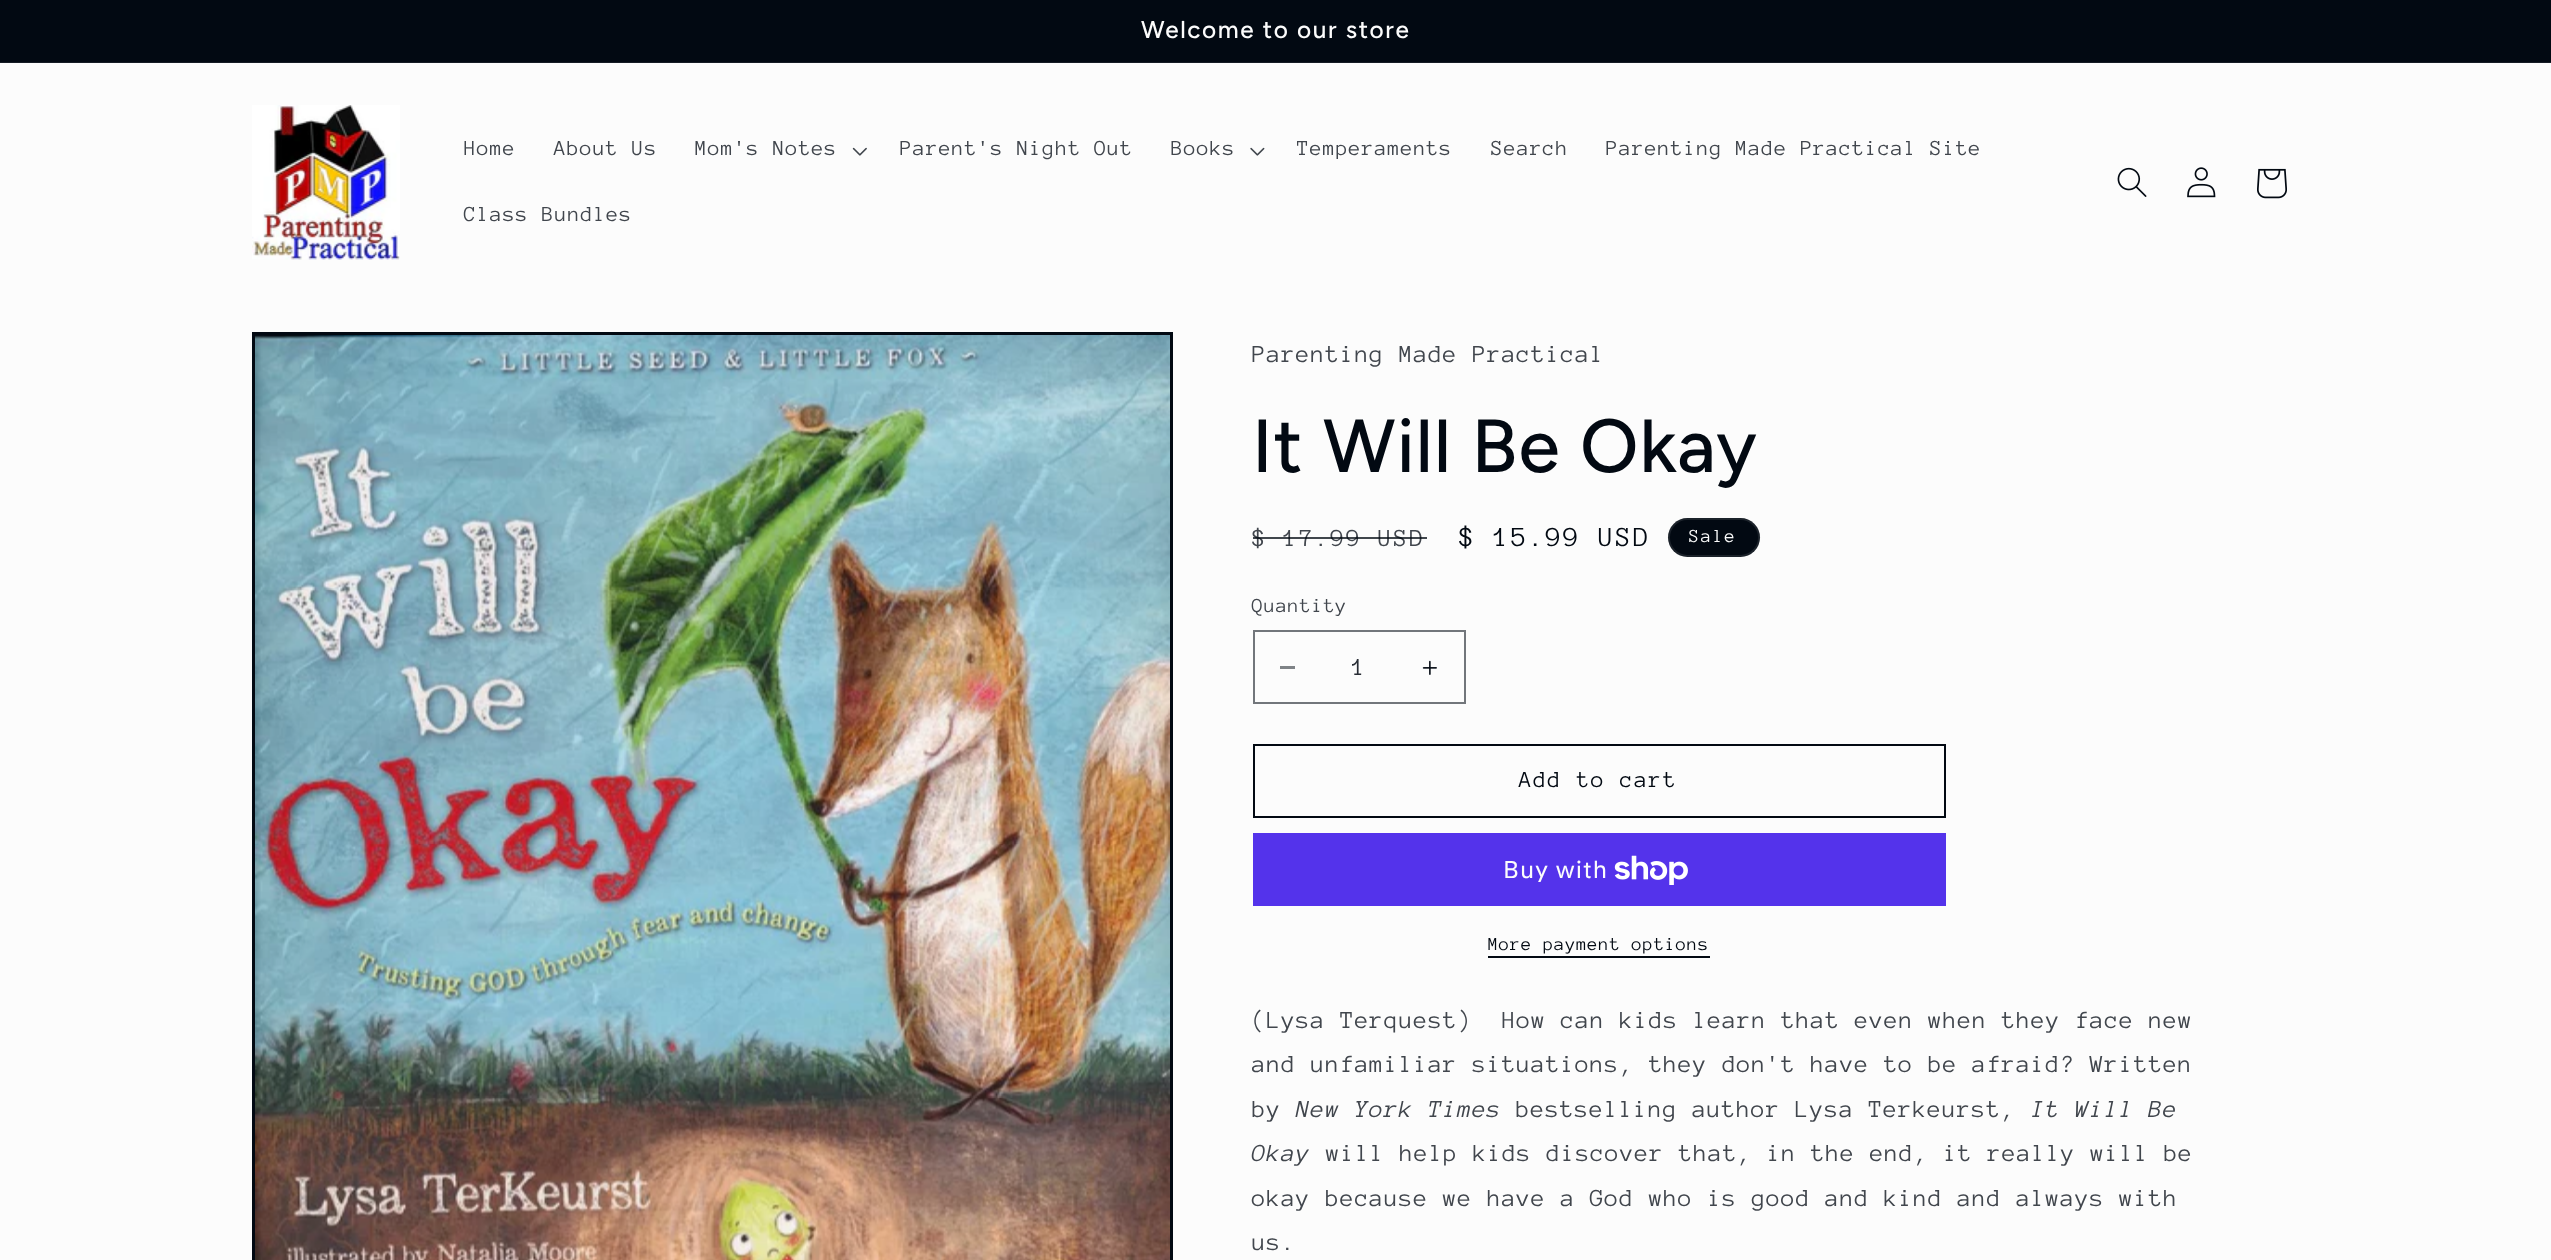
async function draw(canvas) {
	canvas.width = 2551;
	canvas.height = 1260;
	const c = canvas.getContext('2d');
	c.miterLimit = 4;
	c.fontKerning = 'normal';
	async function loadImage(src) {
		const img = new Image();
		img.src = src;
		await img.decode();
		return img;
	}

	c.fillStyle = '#fcfcfc';
	c.fillRect(0, 0, 2551, 1260);
	c.fillStyle = '#020912';
	c.fillRect(0, 0, 2551, 62);
	c.fillStyle = '#161c25';
	c.fillRect(0, 62, 2551, 1);
	c.letterSpacing = '1.6px';
	c.font = '500 24.4px Figtree';
	c.fillStyle = '#fcfcfc';
	c.fillText('Welcome to our store', 1141, 38);
	c.drawImage(await loadImage('img1.png'), 252, 105, 148, 155);
	c.letterSpacing = '0.95px';
	c.font = '22px Anonymous Pro';
	c.fillStyle = '#41464d';
	for (const [text, x, y] of [
		['Home', 464, 155],
		['About Us', 554, 155],
		['Mom\'s Notes', 695, 155],
	]) {
		c.fillText(text, x, y);
	}
	c.drawImage(await loadImage('img2.png'), 852, 147, 15, 9);
	c.fillText('Parent\'s Night Out', 900, 155);
	c.fillText('Books', 1171, 155);
	c.drawImage(await loadImage('img3.png'), 1250, 147, 15, 9);
	for (const [text, x, y] of [
		['Temperaments', 1297, 155],
		['Search', 1491, 155],
		['Parenting Made Practical Site', 1606, 155],
		['Class Bundles', 464, 221],
	]) {
		c.fillText(text, x, y);
	}
	c.drawImage(await loadImage('img4.png'), 2117, 167, 30, 30);
	c.drawImage(await loadImage('img5.png'), 2187, 167, 29, 31);
	c.drawImage(await loadImage('img6.png'), 2257, 168, 30, 31);
	c.strokeStyle = '#020912';
	c.lineWidth = 3;
	c.strokeRect(253.5, 333.5, 918, 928);
	c.drawImage(await loadImage('img7.png'), 255, 335, 915, 925);
	c.font = '25.2px Anonymous Pro';
	c.fillText('Parenting Made Practical', 1252, 362);
	c.letterSpacing = '1.1px';
	c.font = '500 75px Figtree';
	c.fillStyle = '#020912';
	c.fillText('It Will Be Okay', 1252, 472);
	c.letterSpacing = '2px';
	c.font = '25.2px Anonymous Pro';
	c.fillStyle = '#41464d';
	c.fillText('$ 17.99 USD', 1252, 546);
	c.fillStyle = '#020912bf';
	c.fillRect(1253, 537, 174, 2);
	c.font = '28.25px Anonymous Pro';
	c.fillStyle = '#020912';
	c.fillText('$ 15.99 USD', 1459, 546);
	c.beginPath();
	c.roundRect(1668, 518, 92, 39, 19.5);
	c.fill();
	c.beginPath();
	c.roundRect(1669, 519, 90, 37, 18.5);
	c.strokeStyle = '#fcfcfc1a';
	c.lineWidth = 2;
	c.stroke();
	c.letterSpacing = '1.6px';
	c.font = '18.9px Anonymous Pro';
	c.fillStyle = '#fcfcfc';
	c.fillText('Sale', 1689, 542);
	c.letterSpacing = '0.75px';
	c.font = '20.5px Anonymous Pro';
	c.fillStyle = '#41464d';
	c.fillText('Quantity', 1252, 612);
	c.fillStyle = '#7f8387';
	c.fillRect(1280, 666, 15, 3);
	c.drawImage(await loadImage('img8.png'), 1422, 660, 15, 15);
	c.strokeStyle = '#72767b';
	c.strokeRect(1254, 631, 211, 72);
	c.letterSpacing = '0px';
	c.font = '25.2px Anonymous Pro';
	c.fillStyle = '#282d35';
	c.fillText('1', 1352, 675);
	c.strokeStyle = '#020912';
	c.strokeRect(1254, 745, 691, 72);
	c.letterSpacing = '1.6px';
	c.font = '23.5px Anonymous Pro';
	c.fillStyle = '#020912';
	c.fillText('Add to cart', 1519, 787);
	c.fillStyle = '#5433eb';
	c.fillRect(1253, 833, 693, 73);
	c.letterSpacing = '0.95px';
	c.font = '24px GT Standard';
	c.fillStyle = '#fcfcfc';
	c.fillText('Buy with', 1503, 878);
	c.drawImage(await loadImage('img9.png'), 1614, 855, 74, 30);
	c.letterSpacing = '0.75px';
	c.font = '18.9px Anonymous Pro';
	c.fillStyle = '#020912';
	c.fillText('More payment options', 1488, 950);
	c.fillRect(1488, 956, 222, 2);
	c.letterSpacing = '0.95px';
	c.font = '25.2px Anonymous Pro';
	c.fillStyle = '#41464d';
	for (const [text, x, y] of [
		['(Lysa Terquest)', 1252, 1028],
		['How can kids learn that even when they face new', 1502, 1028],
		['and unfamiliar situations, they don\'t have to be afraid? Written', 1252, 1072],
		['by', 1252, 1117],
	]) {
		c.fillText(text, x, y);
	}
	c.font = 'italic 25.2px Anonymous Pro';
	c.fillText('New York Times', 1296, 1117);
	c.font = '25.2px Anonymous Pro';
	c.fillText('bestselling author Lysa Terkeurst,', 1516, 1117);
	c.font = 'italic 25.2px Anonymous Pro';
	c.fillText('It Will Be', 2031, 1117);
	c.fillText('Okay', 1252, 1161);
	c.font = '25.2px Anonymous Pro';
	for (const [text, x, y] of [
		['will help kids discover that, in the end, it really will be', 1326, 1161],
		['okay because we have a God who is good and kind and always with', 1252, 1206],
		['us.', 1252, 1250],
	]) {
		c.fillText(text, x, y);
	}
}

draw(document.querySelector('canvas'));
